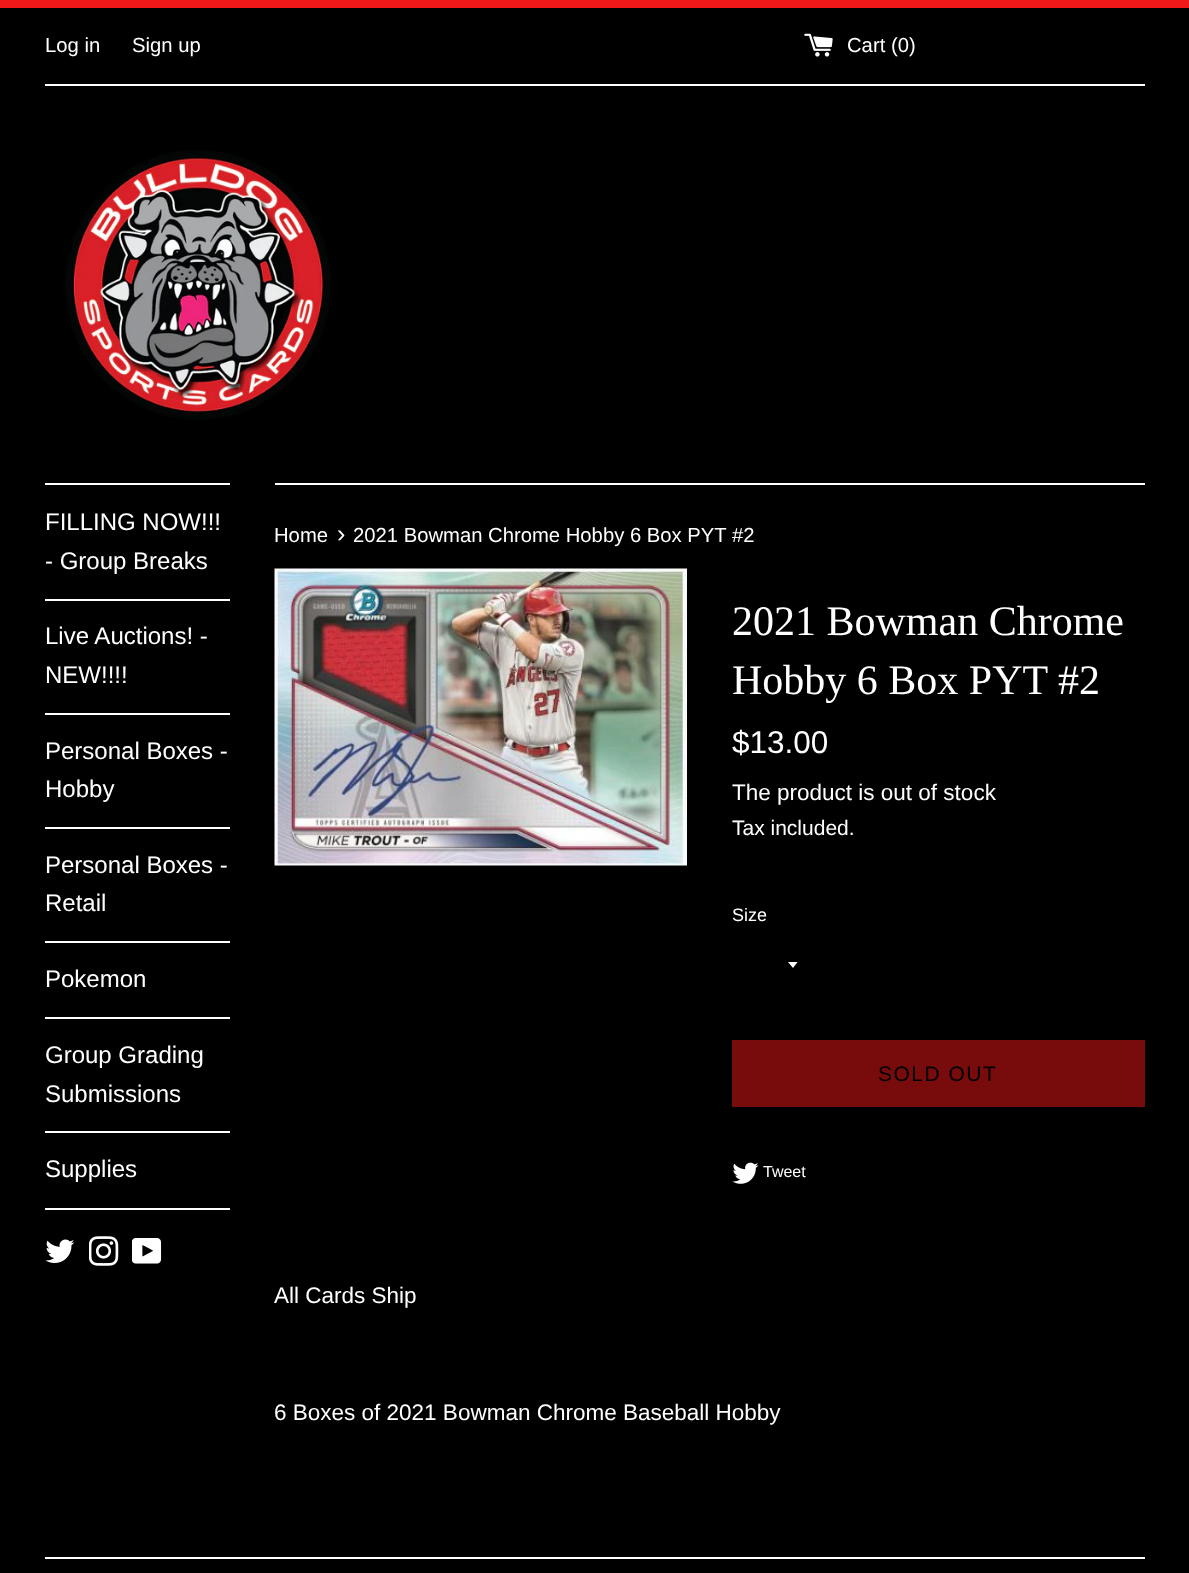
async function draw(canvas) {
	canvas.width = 1189;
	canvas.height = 1573;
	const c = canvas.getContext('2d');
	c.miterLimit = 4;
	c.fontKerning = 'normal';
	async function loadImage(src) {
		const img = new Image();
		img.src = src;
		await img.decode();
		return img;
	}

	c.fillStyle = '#000';
	c.fillRect(0, 0, 1189, 1573);
	c.fillStyle = '#f01818';
	c.fillRect(0, 0, 1189, 8);
	c.font = '20.25px Liberation Sans';
	c.fillStyle = '#fff';
	c.fillText('Log in', 45, 52);
	c.fillText('Sign up', 132, 52);
	c.drawImage(await loadImage('img1.png'), 804, 33, 29, 24);
	c.fillText('Cart (0)', 847, 52);
	c.fillRect(45, 84, 1100, 2);
	c.drawImage(await loadImage('img2.png'), 65, 150, 266, 270);
	c.fillRect(45, 483, 185, 2);
	c.fillRect(45, 599, 185, 2);
	c.font = '24px Liberation Sans';
	c.fillText('FILLING NOW!!!', 45, 530);
	c.fillText('- Group Breaks', 45, 569);
	c.fillRect(45, 713, 185, 2);
	c.fillText('Live Auctions! -', 45, 644);
	c.fillText('NEW!!!!', 45, 683);
	c.fillRect(45, 827, 185, 2);
	c.fillText('Personal Boxes -', 45, 759);
	c.fillText('Hobby', 45, 797);
	c.fillRect(45, 941, 185, 2);
	c.fillText('Personal Boxes -', 45, 873);
	c.fillText('Retail', 45, 911);
	c.fillRect(45, 1017, 185, 2);
	c.fillText('Pokemon', 45, 987);
	c.fillRect(45, 1131, 185, 2);
	c.fillText('Group Grading', 45, 1063);
	c.fillText('Submissions', 45, 1102);
	c.fillRect(45, 1208, 185, 2);
	c.fillText('Supplies', 45, 1177);
	c.drawImage(await loadImage('img3.png'), 45, 1239, 30, 24);
	c.drawImage(await loadImage('img4.png'), 89, 1236, 30, 30);
	c.drawImage(await loadImage('img5.png'), 132, 1238, 30, 26);
	c.fillRect(275, 483, 870, 2);
	c.font = '20.25px Liberation Sans';
	c.fillText('Home', 274, 542);
	c.font = '25px Liberation Sans';
	c.fillText('›', 337, 542);
	c.font = '20.25px Liberation Sans';
	c.fillText('2021 Bowman Chrome Hobby 6 Box PYT #2', 353, 542);
	c.drawImage(await loadImage('img6.png'), 274, 568, 413, 298);
	c.font = '42px Liberation Serif';
	c.fillText('2021 Bowman Chrome', 732, 635);
	c.fillText('Hobby 6 Box PYT #2', 732, 694);
	c.font = '31.5px Liberation Sans';
	c.fillText('$13.00', 732, 753);
	c.font = '22.5px Liberation Sans';
	c.fillText('The product is out of stock', 732, 800);
	c.font = '21px Liberation Sans';
	c.fillText('Tax included.', 732, 835);
	c.font = '18px Liberation Sans';
	c.fillText('Size', 732, 921);
	c.save();
	c.beginPath();
	c.rect(788, 962, 12, 7);
	c.clip();
	c.beginPath();
	c.moveTo(787.5, 961.5);
	c.lineTo(793, 968);
	c.lineTo(798, 961.5);
	c.closePath();
	c.fill();
	c.restore();
	c.fillStyle = '#780c0c';
	c.fillRect(732, 1040, 413, 67);
	c.letterSpacing = '1.5px';
	c.font = '21px Liberation Sans';
	c.fillStyle = '#000';
	c.fillText('SOLD OUT', 878, 1081);
	c.drawImage(await loadImage('img7.png'), 732, 1162, 27, 22);
	c.letterSpacing = '0px';
	c.font = '16px Liberation Sans';
	c.fillStyle = '#fff';
	c.fillText('Tweet', 763, 1177);
	c.font = '22.5px Liberation Sans';
	c.fillText('All Cards Ship', 274, 1303);
	c.fillText('6 Boxes of 2021 Bowman Chrome Baseball Hobby', 274, 1420);
	c.fillRect(45, 1557, 1100, 2);
}

draw(document.querySelector('canvas'));
